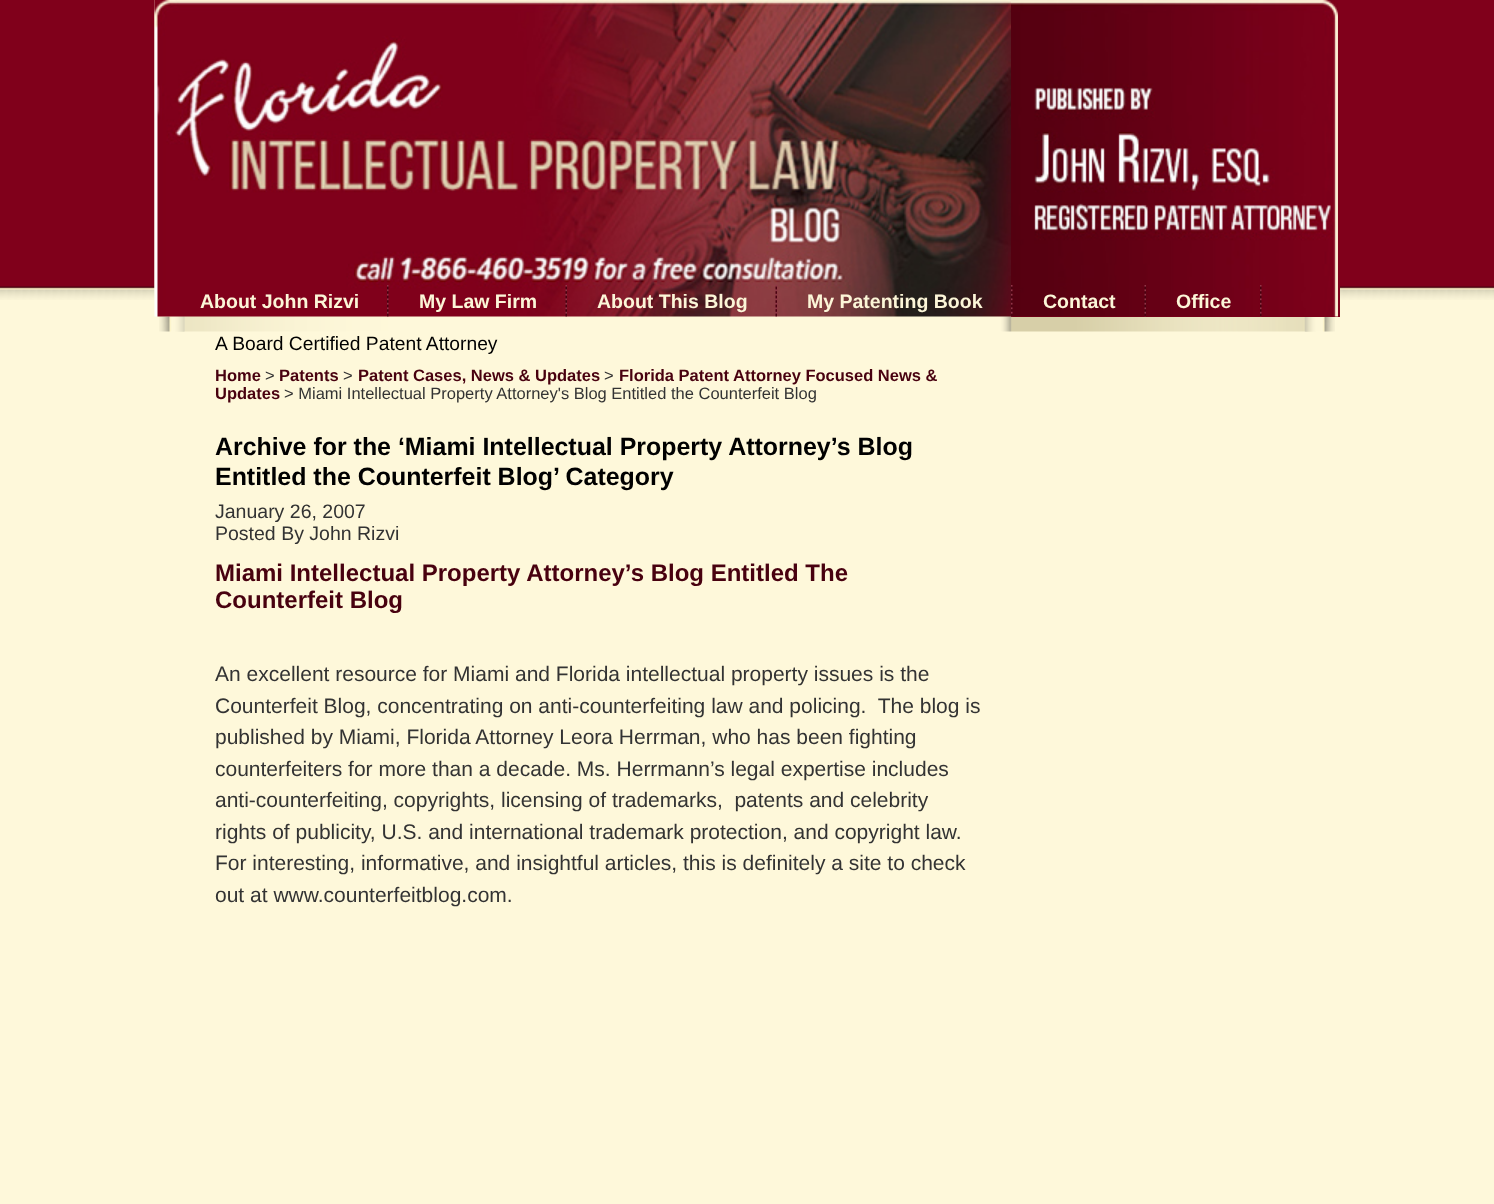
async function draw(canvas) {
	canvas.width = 1494;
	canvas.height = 1204;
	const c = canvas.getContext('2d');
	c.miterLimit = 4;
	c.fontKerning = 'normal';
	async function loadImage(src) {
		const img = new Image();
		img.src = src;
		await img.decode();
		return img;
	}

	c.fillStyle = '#fef8da';
	c.fillRect(0, 0, 1494, 1204);
	c.drawImage(await loadImage('img1.png'), 0, 0, 1494, 300);
	c.drawImage(await loadImage('img2.png'), 154, 0, 1186, 332);
	c.drawImage(await loadImage('img11.png'), 159, 316, 1176, 16);
	c.drawImage(await loadImage('img3.png'), 154, 0, 857, 317);
	c.fillStyle = '#80001b';
	c.fillRect(1011, 0, 329, 317);
	c.drawImage(await loadImage('img4.png'), 1011, 0, 327, 317);
	c.drawImage(await loadImage('img5.png'), 387, 285, 2, 32);
	c.font = 'bold 19.5px Liberation Sans';
	c.fillStyle = '#fcf6d8';
	c.fillText('About John Rizvi', 200, 308);
	c.drawImage(await loadImage('img6.png'), 565, 285, 2, 32);
	c.fillText('My Law Firm', 419, 308);
	c.drawImage(await loadImage('img7.png'), 775, 285, 2, 32);
	c.fillText('About This Blog', 597, 308);
	c.drawImage(await loadImage('img8.png'), 1011, 285, 2, 32);
	c.fillText('My Patenting Book', 807, 308);
	c.drawImage(await loadImage('img9.png'), 1144, 285, 2, 32);
	c.fillText('Contact', 1043, 308);
	c.drawImage(await loadImage('img10.png'), 1260, 285, 2, 32);
	c.fillText('Office', 1176, 308);
	c.font = '19.25px Liberation Sans';
	c.fillStyle = '#000';
	c.fillText('A Board Certified Patent Attorney', 215, 350);
	c.font = 'bold 16.5px Liberation Sans';
	c.fillStyle = '#48010f';
	c.fillText('Home', 215, 381);
	c.font = '16.5px Liberation Sans';
	c.fillStyle = '#333';
	c.fillText('>', 265, 381);
	c.font = 'bold 16.5px Liberation Sans';
	c.fillStyle = '#48010f';
	c.fillText('Patents', 279, 381);
	c.font = '16.5px Liberation Sans';
	c.fillStyle = '#333';
	c.fillText('>', 343, 381);
	c.font = 'bold 16.5px Liberation Sans';
	c.fillStyle = '#48010f';
	c.fillText('Patent Cases, News & Updates', 358, 381);
	c.font = '16.5px Liberation Sans';
	c.fillStyle = '#333';
	c.fillText('>', 604, 381);
	c.font = 'bold 16.5px Liberation Sans';
	c.fillStyle = '#48010f';
	c.fillText('Florida Patent Attorney Focused News &', 619, 381);
	c.fillText('Updates', 215, 399);
	c.font = '16.5px Liberation Sans';
	c.fillStyle = '#333';
	c.fillText('> Miami Intellectual Property Attorney\'s Blog Entitled the Counterfeit Blog', 284, 399);
	c.font = 'bold 24.95px Liberation Sans';
	c.fillStyle = '#000';
	c.fillText('Archive for the ‘Miami Intellectual Property Attorney’s Blog', 215, 455);
	c.fillText('Entitled the Counterfeit Blog’ Category', 215, 485);
	c.font = '19.5px Liberation Sans';
	c.fillStyle = '#333';
	c.fillText('January 26, 2007', 215, 518);
	c.fillText('Posted By John Rizvi', 215, 540);
	c.font = 'bold 24px Liberation Sans';
	c.fillStyle = '#48010f';
	c.fillText('Miami Intellectual Property Attorney’s Blog Entitled The', 215, 581);
	c.fillText('Counterfeit Blog', 215, 608);
	c.font = '21px Liberation Sans';
	c.fillStyle = '#333';
	for (const [text, x, y] of [
		['An excellent resource for Miami and Florida intellectual property issues is the', 215, 681],
		['Counterfeit Blog, concentrating on anti-counterfeiting law and policing.  The blog is', 215, 713],
		['published by Miami, Florida Attorney Leora Herrman, who has been fighting', 215, 744],
		['counterfeiters for more than a decade. Ms. Herrmann’s legal expertise includes', 215, 776],
		['anti-counterfeiting, copyrights, licensing of trademarks,  patents and celebrity', 215, 807],
		['rights of publicity, U.S. and international trademark protection, and copyright law.', 215, 839],
		['For interesting, informative, and insightful articles, this is definitely a site to check', 215, 870],
		['out at www.counterfeitblog.com.', 215, 902],
	]) {
		c.fillText(text, x, y);
	}
}

draw(document.querySelector('canvas'));
